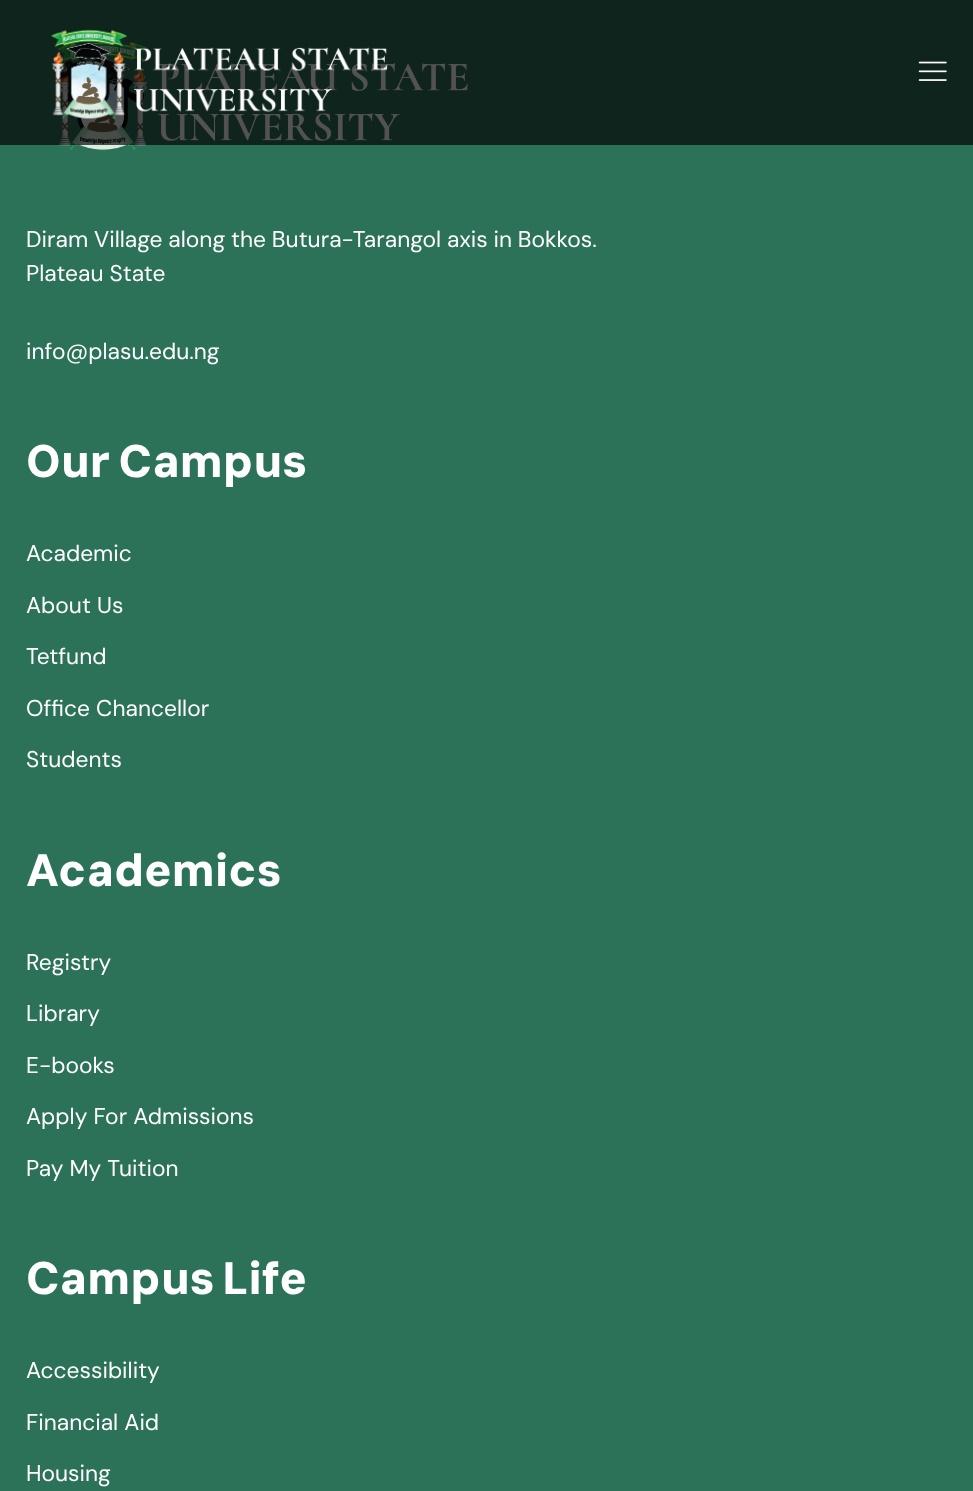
async function draw(canvas) {
	canvas.width = 973;
	canvas.height = 1491;
	const c = canvas.getContext('2d');
	c.miterLimit = 4;
	c.fontKerning = 'normal';
	async function loadImage(src) {
		const img = new Image();
		img.src = src;
		await img.decode();
		return img;
	}

	c.fillStyle = '#2b7258';
	c.fillRect(0, 0, 973, 1491);
	c.fillStyle = '#0e241c';
	c.fillRect(0, 0, 973, 145);
	c.drawImage(await loadImage('img3.png'), 56, 41, 412, 109);
	c.drawImage(await loadImage('img1.png'), 50, 29, 338, 90);
	c.drawImage(await loadImage('img2.png'), 918, 61, 29, 20);
	c.wordSpacing = '-0.25px';
	c.font = '22.75px DM Sans';
	c.fillStyle = '#fff';
	c.fillText('Diram Village along the Butura-Tarangol axis in Bokkos.', 26, 247);
	c.wordSpacing = '0px';
	c.fillText('Plateau State', 26, 281);
	c.fillText('info@plasu.edu.ng', 26, 359);
	c.wordSpacing = '-2px';
	c.font = '900 45.5px DM Sans';
	c.fillText('Our Campus', 26, 477);
	c.wordSpacing = '0px';
	c.font = '22.75px DM Sans';
	for (const [text, x, y] of [
		['Academic', 26, 561],
		['About Us', 26, 613],
		['Tetfund', 26, 664],
		['Office Chancellor', 26, 716],
		['Students', 26, 767],
	]) {
		c.fillText(text, x, y);
	}
	c.font = '900 45.5px DM Sans';
	c.fillText('Academics', 26, 886);
	c.font = '22.75px DM Sans';
	for (const [text, x, y] of [
		['Registry', 26, 970],
		['Library', 26, 1021],
		['E-books', 26, 1073],
		['Apply For Admissions', 26, 1124],
		['Pay My Tuition', 26, 1176],
	]) {
		c.fillText(text, x, y);
	}
	c.wordSpacing = '-3px';
	c.font = '900 45.5px DM Sans';
	c.fillText('Campus Life', 26, 1294);
	c.wordSpacing = '0px';
	c.font = '22.75px DM Sans';
	for (const [text, x, y] of [
		['Accessibility', 26, 1378],
		['Financial Aid', 26, 1430],
		['Housing', 26, 1481],
	]) {
		c.fillText(text, x, y);
	}
}

draw(document.querySelector('canvas'));
